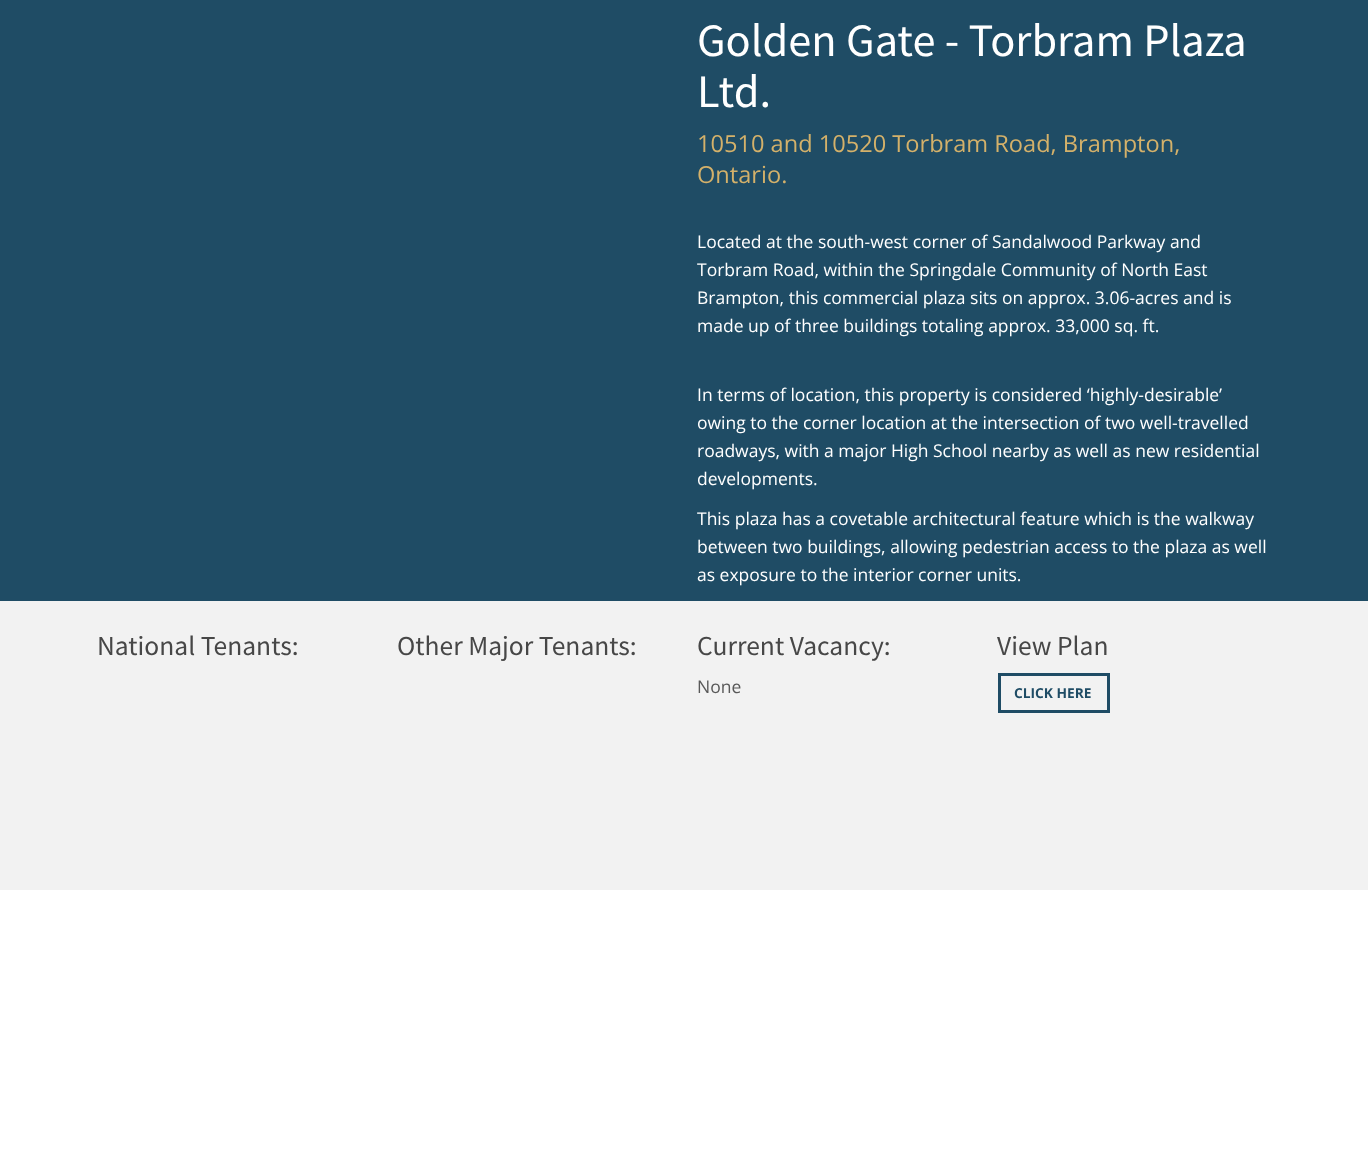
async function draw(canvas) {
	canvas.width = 1368;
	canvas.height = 1150;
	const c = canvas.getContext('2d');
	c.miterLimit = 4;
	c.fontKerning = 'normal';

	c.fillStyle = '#fff';
	c.fillRect(0, 0, 1368, 1150);
	c.fillStyle = '#1f4c65';
	c.fillRect(0, 0, 1368, 601);
	c.font = '46.4px Source Sans Pro';
	c.fillStyle = '#fff';
	c.fillText('Golden Gate - Torbram Plaza', 697, 56);
	c.fillText('Ltd.', 697, 107);
	c.font = '23.6px Open Sans';
	c.fillStyle = '#d4b16a';
	c.fillText('10510 and 10520 Torbram Road, Brampton,', 697, 152);
	c.fillText('Ontario.', 697, 183);
	c.font = '17.5px Open Sans';
	c.fillStyle = '#fff';
	for (const [text, x, y] of [
		['Located at the south-west corner of Sandalwood Parkway and', 697, 248],
		['Torbram Road, within the Springdale Community of North East', 697, 276],
		['Brampton, this commercial plaza sits on approx. 3.06-acres and is', 697, 304],
		['made up of three buildings totaling approx. 33,000 sq. ft.', 697, 332],
		['In terms of location, this property is considered ‘highly-desirable’', 697, 401],
		['owing to the corner location at the intersection of two well-travelled', 697, 429],
		['roadways, with a major High School nearby as well as new residential', 697, 457],
		['developments.', 697, 485],
		['This plaza has a covetable architectural feature which is the walkway', 697, 525],
		['between two buildings, allowing pedestrian access to the plaza as well', 697, 553],
		['as exposure to the interior corner units.', 697, 581],
	]) {
		c.fillText(text, x, y);
	}
	c.fillStyle = '#f2f2f2';
	c.fillRect(0, 601, 1368, 289);
	c.font = '27.5px Source Sans Pro';
	c.fillStyle = '#474747';
	for (const [text, x, y] of [
		['National Tenants:', 97, 655],
		['Other Major Tenants:', 397, 655],
		['Current Vacancy:', 697, 655],
	]) {
		c.fillText(text, x, y);
	}
	c.font = '17.5px Open Sans';
	c.fillStyle = '#595959';
	c.fillText('None', 697, 693);
	c.font = '27.5px Source Sans Pro';
	c.fillStyle = '#474747';
	c.fillText('View Plan', 997, 655);
	c.strokeStyle = '#1f4c65';
	c.lineWidth = 3;
	c.strokeRect(999.5, 674.5, 109, 37);
	c.font = 'bold 13.75px Open Sans';
	c.fillStyle = '#1f4c65';
	c.fillText('CLICK HERE', 1014, 698);
}

draw(document.querySelector('canvas'));
